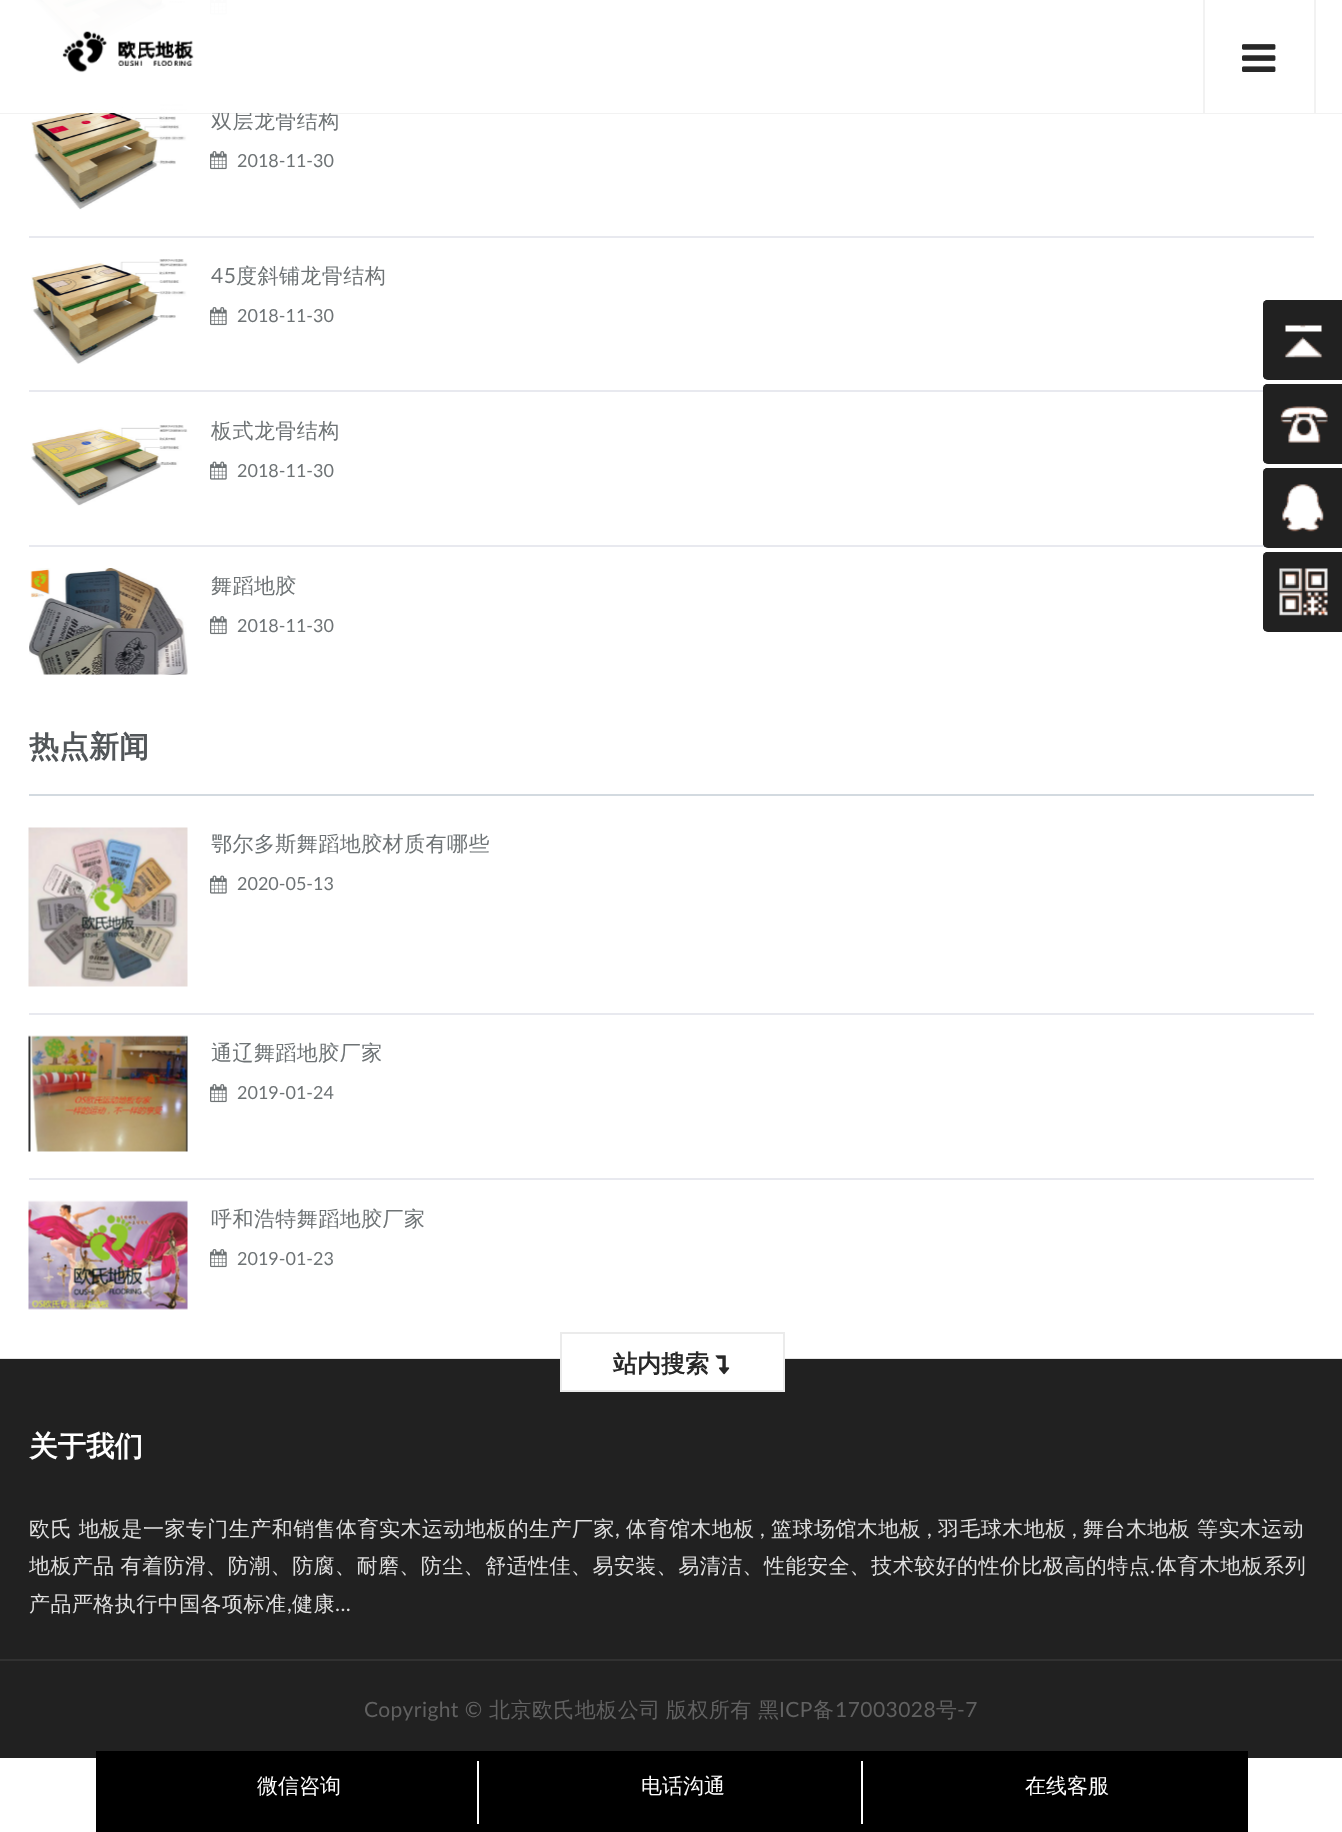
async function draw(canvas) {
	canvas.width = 1342;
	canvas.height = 1832;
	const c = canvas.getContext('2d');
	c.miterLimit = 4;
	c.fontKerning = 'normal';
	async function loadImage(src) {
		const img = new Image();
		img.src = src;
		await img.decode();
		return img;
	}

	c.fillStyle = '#fff';
	c.fillRect(0, 0, 1342, 1832);
	c.drawImage(await loadImage('img5.png'), 31, 103, 157, 107);
	c.fillStyle = '#0000000d';
	c.beginPath();
	c.moveTo(0, 112);
	c.lineTo(0, 114);
	c.lineTo(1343, 114);
	c.lineTo(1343, 2);
	c.lineTo(1342, 2);
	c.lineTo(1342, 112);
	c.closePath();
	c.fill();
	c.fillStyle = '#e8e9ef';
	c.fillRect(29, 80, 1285, 2);
	c.drawImage(await loadImage('img3.png'), 34, 0, 152, 51);
	c.drawImage(await loadImage('img4.png'), 210, 0, 17, 15);
	c.letterSpacing = '0.45px';
	c.font = '500 21px WenQuanYi Zen Hei';
	c.fillStyle = '#6e7375';
	c.fillText('双层龙骨结构', 211, 128);
	c.fillStyle = '#fffffffa';
	c.fillRect(0, 0, 1342, 113);
	c.drawImage(await loadImage('img1.png'), 62, 31, 132, 42);
	c.fillStyle = '#f2f2f2';
	c.fillRect(1314, 0, 2, 113);
	c.fillRect(1203, 0, 2, 113);
	c.drawImage(await loadImage('img2.png'), 1242, 44, 34, 28);
	c.fillStyle = '#e8e9ef';
	c.fillRect(29, 236, 1285, 2);
	c.drawImage(await loadImage('img6.png'), 210, 151, 17, 19);
	c.letterSpacing = '0px';
	c.font = '18px Lato';
	c.fillStyle = '#6e7375';
	c.fillText('2018-11-30', 237, 167);
	c.fillStyle = '#e8e9ef';
	c.fillRect(29, 390, 1234, 2);
	c.drawImage(await loadImage('img7.png'), 31, 259, 157, 105);
	c.letterSpacing = '0.45px';
	c.font = '21px Lato';
	c.fillStyle = '#6e7375';
	c.fillText('45', 211, 283);
	c.font = '500 21px WenQuanYi Zen Hei';
	c.fillText('度斜铺龙骨结构', 236, 283);
	c.drawImage(await loadImage('img6.png'), 210, 307, 17, 19);
	c.letterSpacing = '0px';
	c.font = '18px Lato';
	c.fillText('2018-11-30', 237, 322);
	c.fillStyle = '#e8e9ef';
	c.fillRect(29, 545, 1236, 2);
	c.drawImage(await loadImage('img8.png'), 31, 425, 157, 81);
	c.letterSpacing = '0.45px';
	c.font = '500 21px WenQuanYi Zen Hei';
	c.fillStyle = '#6e7375';
	c.fillText('板式龙骨结构', 211, 438);
	c.drawImage(await loadImage('img9.png'), 210, 461, 17, 19);
	c.letterSpacing = '0px';
	c.font = '18px Lato';
	c.fillText('2018-11-30', 237, 477);
	c.drawImage(await loadImage('img10.png'), 29, 568, 159, 107);
	c.letterSpacing = '0.45px';
	c.font = '500 21px WenQuanYi Zen Hei';
	c.fillText('舞蹈地胶', 211, 593);
	c.drawImage(await loadImage('img6.png'), 210, 616, 17, 19);
	c.letterSpacing = '0px';
	c.font = '18px Lato';
	c.fillText('2018-11-30', 237, 632);
	c.font = 'bold 30px WenQuanYi Zen Hei';
	c.fillStyle = '#525659';
	c.fillText('热点新闻', 29, 757);
	c.fillStyle = '#d3dae0';
	c.fillRect(29, 794, 1285, 2);
	c.fillStyle = '#e8e9ef';
	c.fillRect(29, 1013, 1285, 2);
	c.drawImage(await loadImage('img11.png'), 28, 827, 160, 160);
	c.letterSpacing = '0.45px';
	c.font = '500 21px WenQuanYi Zen Hei';
	c.fillStyle = '#6e7375';
	c.fillText('鄂尔多斯舞蹈地胶材质有哪些', 211, 851);
	c.drawImage(await loadImage('img9.png'), 210, 875, 17, 19);
	c.letterSpacing = '0px';
	c.font = '18px Lato';
	c.fillText('2020-05-13', 237, 890);
	c.fillStyle = '#e8e9ef';
	c.fillRect(29, 1178, 1285, 2);
	c.drawImage(await loadImage('img12.png'), 28, 1035, 160, 117);
	c.letterSpacing = '0.45px';
	c.font = '500 21px WenQuanYi Zen Hei';
	c.fillStyle = '#6e7375';
	c.fillText('通辽舞蹈地胶厂家', 211, 1060);
	c.drawImage(await loadImage('img6.png'), 210, 1084, 17, 19);
	c.letterSpacing = '0px';
	c.font = '18px Lato';
	c.fillText('2019-01-24', 237, 1099);
	c.drawImage(await loadImage('img13.png'), 28, 1200, 160, 110);
	c.letterSpacing = '0.45px';
	c.font = '500 21px WenQuanYi Zen Hei';
	c.fillText('呼和浩特舞蹈地胶厂家', 211, 1226);
	c.drawImage(await loadImage('img6.png'), 210, 1249, 17, 19);
	c.letterSpacing = '0px';
	c.font = '18px Lato';
	c.fillText('2019-01-23', 237, 1265);
	for (const [x, y, w, h, color] of [
		[0, 1358, 1342, 1, '#e6e6e6'],
		[0, 1359, 1342, 300, '#212121'],
		[562, 1358, 221, 32, '#fff'],
	]) {
		c.fillStyle = color;
		c.fillRect(x, y, w, h);
	}
	c.strokeStyle = '#ebebeb';
	c.lineWidth = 2;
	c.strokeRect(561, 1333, 223, 58);
	c.font = 'bold 24px WenQuanYi Zen Hei';
	c.fillStyle = '#282828';
	c.fillText('站内搜索', 613, 1372);
	c.drawImage(await loadImage('img14.png'), 715, 1355, 15, 20);
	c.font = 'bold 28.5px WenQuanYi Zen Hei';
	c.fillStyle = '#fff';
	c.fillText('关于我们', 29, 1456);
	c.letterSpacing = '0.45px';
	c.font = '500 21px WenQuanYi Zen Hei';
	c.fillStyle = '#dfdfdf';
	c.fillText('欧氏 地板是一家专门生产和销售体育实木运动地板的生产厂家', 29, 1536);
	c.font = '21px Lato';
	c.fillText(',', 615, 1536);
	c.font = '500 21px WenQuanYi Zen Hei';
	c.fillText('体育馆木地板', 626, 1536);
	c.font = '21px Lato';
	c.fillText(',', 760, 1536);
	c.font = '500 21px WenQuanYi Zen Hei';
	c.fillText('篮球场馆木地板', 771, 1536);
	c.font = '21px Lato';
	c.fillText(',', 927, 1536);
	c.font = '500 21px WenQuanYi Zen Hei';
	c.fillText('羽毛球木地板', 938, 1536);
	c.font = '21px Lato';
	c.fillText(',', 1072, 1536);
	c.font = '500 21px WenQuanYi Zen Hei';
	c.fillText('舞台木地板 等实木运动', 1083, 1536);
	c.wordSpacing = '-1px';
	c.fillText('地板产品 有着防滑、防潮、防腐、耐磨、防尘、舒适性佳、易安装、易清洁、性能安全、技术较好的性价比极高的特点', 29, 1573);
	c.wordSpacing = '0px';
	c.font = '21px Lato';
	c.fillText('.', 1150, 1573);
	c.font = '500 21px WenQuanYi Zen Hei';
	c.fillText('体育木地板系列', 1156, 1573);
	c.fillText('产品严格执行中国各项标准', 29, 1611);
	c.font = '21px Lato';
	c.fillText(',', 287, 1611);
	c.font = '500 21px WenQuanYi Zen Hei';
	c.fillText('健康', 292, 1611);
	c.font = '21px Lato';
	c.fillText('...', 335, 1611);
	c.fillStyle = '#212121';
	c.fillRect(0, 1661, 1342, 97);
	c.fillStyle = '#313131';
	c.fillRect(0, 1659, 1342, 2);
	c.fillStyle = '#616161';
	c.fillText('Copyright ©', 364, 1717);
	c.font = '500 21px WenQuanYi Zen Hei';
	for (const [text, x, y] of [
		['北京欧氏地板公司', 489, 1717],
		['版权所有', 666, 1717],
		['黑', 758, 1717],
	]) {
		c.fillText(text, x, y);
	}
	c.font = '21px Lato';
	c.fillText('ICP', 779, 1717);
	c.font = '500 21px WenQuanYi Zen Hei';
	c.fillText('备', 813, 1717);
	c.font = '21px Lato';
	c.fillText('17003028', 835, 1717);
	c.font = '500 21px WenQuanYi Zen Hei';
	c.fillText('号', 936, 1717);
	c.font = '21px Lato';
	c.fillText('-7', 957, 1717);
	c.fillStyle = '#212121';
	c.beginPath();
	c.roundRect(1263, 300, 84, 80, 5);
	c.fill();
	c.drawImage(await loadImage('img15.png'), 1263, 300, 60, 80);
	c.beginPath();
	c.roundRect(1263, 384, 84, 80, 5);
	c.fill();
	c.drawImage(await loadImage('img16.png'), 1263, 384, 65, 80);
	c.beginPath();
	c.roundRect(1263, 468, 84, 80, 5);
	c.fill();
	c.drawImage(await loadImage('img17.png'), 1263, 468, 61, 80);
	c.beginPath();
	c.roundRect(1263, 552, 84, 80, 5);
	c.fill();
	c.drawImage(await loadImage('img18.png'), 1263, 552, 65, 80);
	c.fillStyle = '#000';
	c.fillRect(96, 1751, 1152, 81);
	c.fillStyle = '#fff';
	c.fillRect(477, 1761, 2, 63);
	c.letterSpacing = '0px';
	c.font = '500 21px WenQuanYi Zen Hei';
	c.fillText('微信咨询', 257, 1793);
	c.fillRect(861, 1761, 2, 63);
	c.fillText('电话沟通', 641, 1793);
	c.fillText('在线客服', 1025, 1793);
}

draw(document.querySelector('canvas'));
